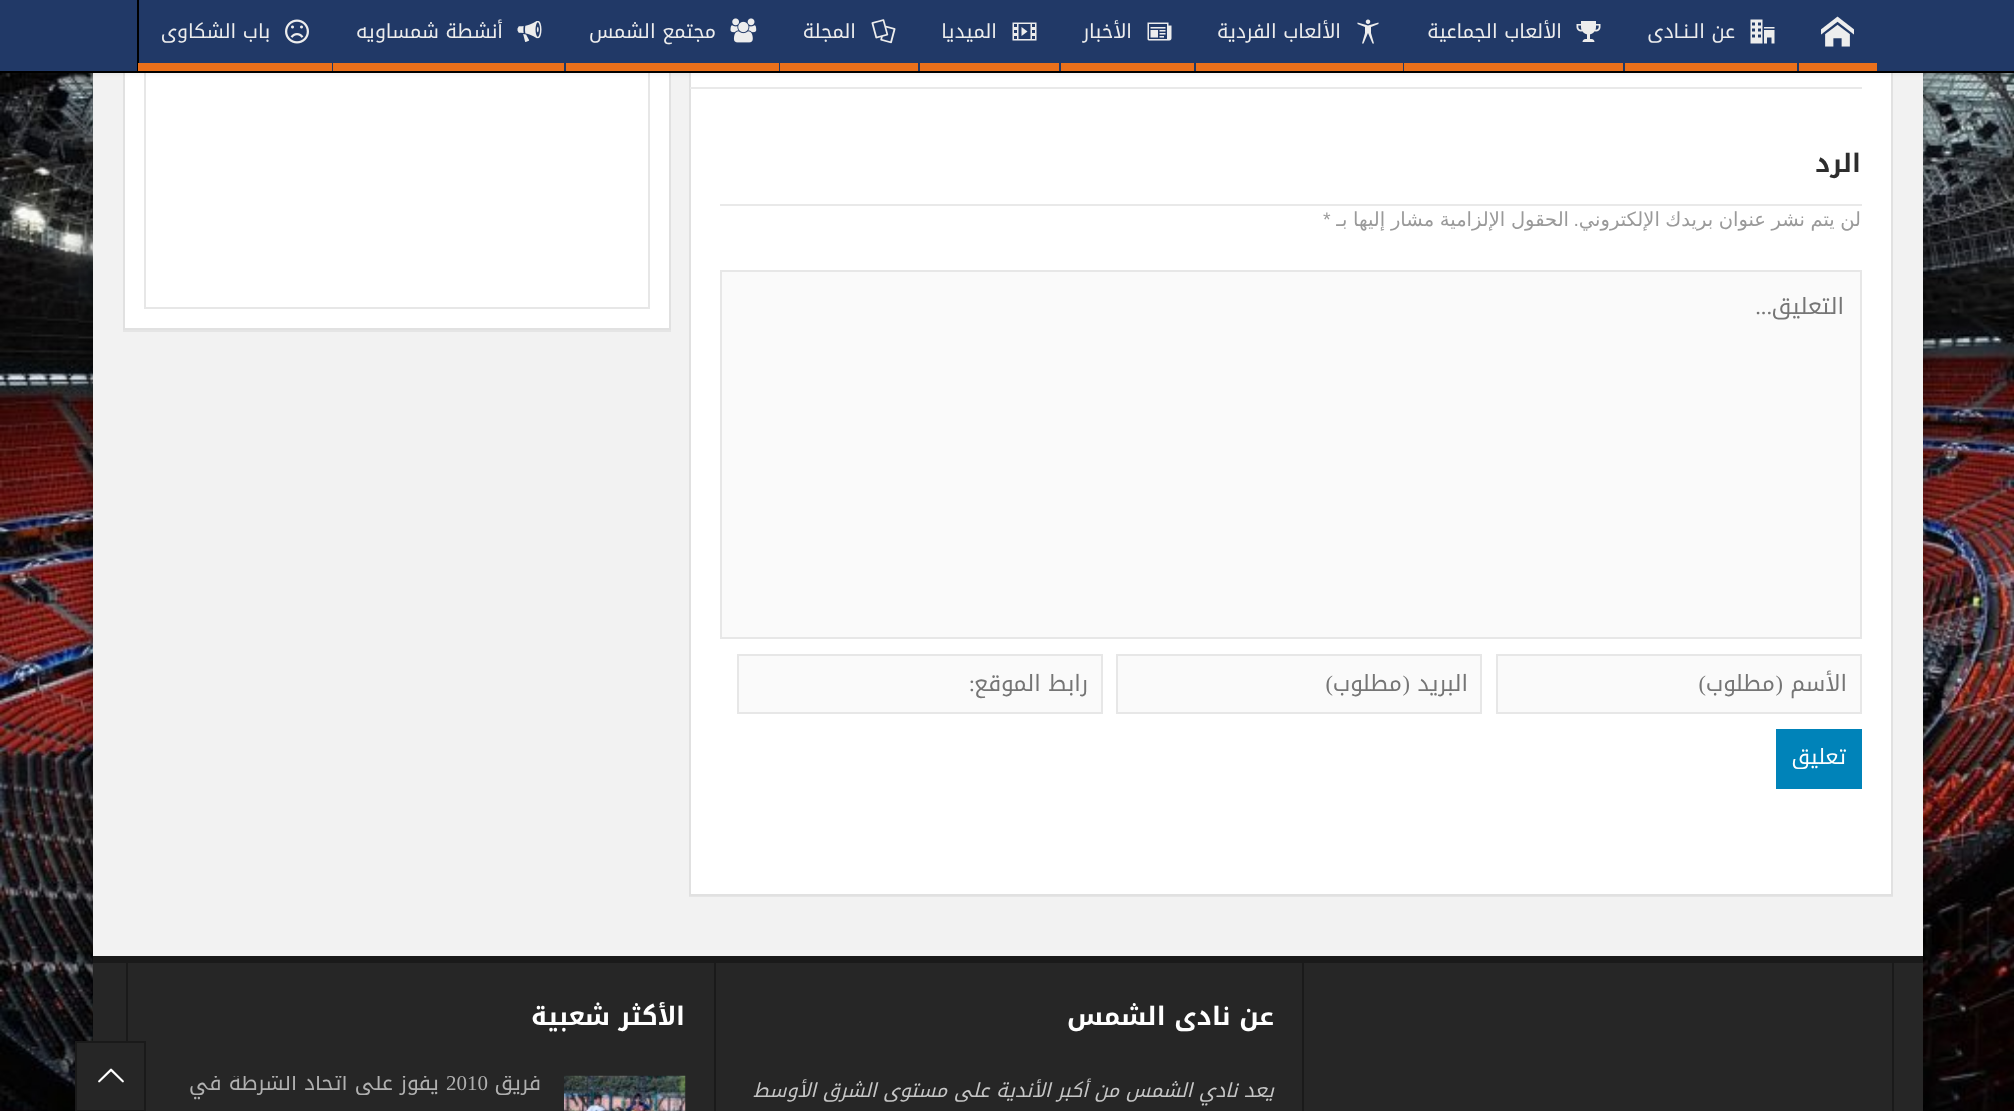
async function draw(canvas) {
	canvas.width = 2014;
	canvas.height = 1111;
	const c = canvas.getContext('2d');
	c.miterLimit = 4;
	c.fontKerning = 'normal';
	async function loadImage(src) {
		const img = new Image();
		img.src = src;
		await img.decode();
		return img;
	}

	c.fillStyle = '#fff';
	c.fillRect(0, 0, 2014, 1111);
	c.drawImage(await loadImage('img1.png'), 0, 73, 2014, 1038);
	c.fillStyle = '#00000070';
	c.filter = 'blur(16px)';
	c.beginPath();
	c.rect(93, -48, 1830, 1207);
	c.fill();
	c.filter = 'none';
	c.fillStyle = '#f2f2f2';
	c.fillRect(93, 73, 1830, 883);
	c.fillStyle = '#fff';
	c.fillRect(691, 73, 1200, 821);
	c.strokeStyle = '#e1e1e1';
	c.lineWidth = 2;
	c.strokeRect(690, -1, 1202, 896);
	c.fillStyle = '#e5e5e5';
	c.beginPath();
	c.moveTo(123, 330);
	c.lineTo(123, 332);
	c.lineTo(671, 332);
	c.lineTo(671, -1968);
	c.lineTo(670, -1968);
	c.lineTo(670, 330);
	c.closePath();
	c.fill();
	c.fillStyle = '#fff';
	c.fillRect(125, 73, 544, 255);
	c.strokeRect(124, -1, 546, 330);
	c.strokeStyle = '#e7e7e7';
	c.strokeRect(145, -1, 504, 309);
	c.fillStyle = '#0000001a';
	c.filter = 'blur(3px)';
	c.beginPath();
	c.rect(0, 0, 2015, 72);
	c.fill();
	c.filter = 'none';
	c.fillStyle = '#213967';
	c.fillRect(0, 0, 2014, 71);
	c.fillStyle = '#000';
	c.fillRect(0, 71, 2014, 2);
	c.drawImage(await loadImage('img2.png'), 1821, 16, 33, 31);
	c.fillStyle = '#ea701b';
	c.fillRect(1799, 63, 78, 8);
	c.drawImage(await loadImage('img3.png'), 1750, 19, 25, 25);
	c.direction = 'rtl';
	c.font = '19.5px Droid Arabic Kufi';
	c.fillStyle = '#ededed';
	c.fillText('عن الـنـادى', 1735, 38);
	c.fillStyle = '#ea701b';
	c.fillRect(1625, 63, 172, 8);
	c.drawImage(await loadImage('img4.png'), 1576, 21, 25, 21);
	c.fillStyle = '#ededed';
	c.fillText('الألعاب الجماعية', 1562, 38);
	c.fillStyle = '#ea701b';
	c.fillRect(1404, 63, 219, 8);
	c.drawImage(await loadImage('img5.png'), 1357, 19, 22, 25);
	c.fillStyle = '#ededed';
	c.fillText('الألعاب الفردية', 1341, 38);
	c.fillStyle = '#ea701b';
	c.fillRect(1196, 63, 207, 8);
	c.drawImage(await loadImage('img6.png'), 1147, 22, 25, 19);
	c.fillStyle = '#ededed';
	c.fillText('الأخبار', 1132, 38);
	c.fillStyle = '#ea701b';
	c.fillRect(1061, 63, 133, 8);
	c.drawImage(await loadImage('img7.png'), 1012, 22, 25, 19);
	c.fillStyle = '#ededed';
	c.fillText('الميديا', 997, 38);
	c.fillStyle = '#ea701b';
	c.fillRect(920, 63, 139, 8);
	c.drawImage(await loadImage('img8.png'), 871, 19, 25, 25);
	c.fillStyle = '#ededed';
	c.fillText('المجلة', 856, 38);
	c.fillStyle = '#ea701b';
	c.fillRect(780, 63, 138, 8);
	c.drawImage(await loadImage('img9.png'), 730, 18, 27, 25);
	c.fillStyle = '#ededed';
	c.fillText('مجتمع الشمس', 716, 38);
	c.fillStyle = '#ea701b';
	c.fillRect(566, 63, 213, 8);
	c.drawImage(await loadImage('img10.png'), 517, 21, 25, 21);
	c.fillStyle = '#ededed';
	c.fillText('أنشطة شمساويه', 503, 38);
	c.fillStyle = '#ea701b';
	c.fillRect(333, 63, 231, 8);
	c.fillStyle = '#000';
	c.fillRect(137, 0, 2, 71);
	c.drawImage(await loadImage('img11.png'), 285, 19, 24, 25);
	c.fillStyle = '#ededed';
	c.fillText('باب الشكاوى', 270, 38);
	for (const [x, y, w, h, color] of [
		[138, 63, 194, 8, '#ea701b'],
		[689, 896, 1204, 1, '#e5e5e5'],
		[690, 87, 1172, 2, '#e9e9e9'],
		[720, 204, 1142, 2, '#e9e9e9'],
	]) {
		c.fillStyle = color;
		c.fillRect(x, y, w, h);
	}
	c.font = 'bold 25.5px Droid Arabic Kufi';
	c.fillStyle = '#2d2d2d';
	c.fillText('الرد', 1861, 172);
	c.wordSpacing = '-0.75px';
	c.font = '19.5px DejaVu Sans';
	c.fillStyle = '#9a9a9a';
	c.fillText('لن يتم نشر عنوان بريدك الإلكتروني', 1861, 226);
	c.wordSpacing = '-0.5px';
	c.fillText('الحقول الإلزامية مشار إليها بـ', 1569, 226);
	c.wordSpacing = '0px';
	c.direction = 'ltr';
	c.font = '19.5px Liberation Sans';
	c.fillText('*', 1323, 226);
	c.direction = 'rtl';
	c.fillText('.', 1579, 226);
	c.fillStyle = '#fafafa';
	c.beginPath();
	c.rect(721, 271, 1140, 367);
	c.fill();
	c.stroke();
	c.font = '22.5px Droid Arabic Kufi';
	c.fillStyle = '#757575';
	c.fillText('التعليق', 1844, 314);
	c.font = '22.5px Liberation Serif';
	c.fillText('...', 1772, 314);
	c.fillStyle = '#fafafa';
	c.beginPath();
	c.rect(1497, 655, 364, 58);
	c.fill();
	c.stroke();
	c.font = '22.5px Droid Arabic Kufi';
	c.fillStyle = '#757575';
	c.fillText('الأسم', 1847, 691);
	c.font = '22.5px Liberation Serif';
	c.fillText('(', 1783, 691);
	c.font = '22.5px Droid Arabic Kufi';
	c.fillText('مطلوب', 1775, 691);
	c.font = '22.5px Liberation Serif';
	c.fillText(')', 1706, 691);
	c.fillStyle = '#fafafa';
	c.beginPath();
	c.rect(1117, 655, 364, 58);
	c.fill();
	c.stroke();
	c.font = '22.5px Droid Arabic Kufi';
	c.fillStyle = '#757575';
	c.fillText('البريد', 1468, 691);
	c.font = '22.5px Liberation Serif';
	c.fillText('(', 1410, 691);
	c.font = '22.5px Droid Arabic Kufi';
	c.fillText('مطلوب', 1402, 691);
	c.font = '22.5px Liberation Serif';
	c.fillText(')', 1333, 691);
	c.fillStyle = '#fafafa';
	c.beginPath();
	c.rect(738, 655, 364, 58);
	c.fill();
	c.stroke();
	c.font = '22.5px Droid Arabic Kufi';
	c.fillStyle = '#757575';
	c.fillText('رابط الموقع', 1088, 691);
	c.font = '22.5px Liberation Serif';
	c.fillText(':', 975, 691);
	c.fillStyle = '#0083b9';
	c.fillRect(1776, 729, 86, 60);
	c.font = '21px Droid Arabic Kufi';
	c.fillStyle = '#fff';
	c.fillText('تعليق', 1846, 764);
	for (const [x, y, w, h, color] of [
		[93, 963, 1830, 148, '#262626'],
		[93, 956, 1830, 7, '#1a1a1a'],
		[1892, 963, 2, 148, '#1a1a1a'],
		[1302, 963, 2, 148, '#1a1a1a'],
		[714, 963, 2, 148, '#1a1a1a'],
	]) {
		c.fillStyle = color;
		c.fillRect(x, y, w, h);
	}
	c.font = 'bold 25.5px Droid Arabic Kufi';
	c.fillStyle = '#fff';
	c.fillText('عن نادى الشمس', 1274, 1025);
	c.font = 'italic 19.5px Droid Arabic Kufi';
	c.fillStyle = '#c6c6c6';
	c.fillText('يعد نادي الشمس من أكبر الأندية على مستوى الشرق الأوسط', 1274, 1097);
	c.fillStyle = '#1a1a1a';
	c.fillRect(126, 963, 2, 78);
	c.font = 'bold 25.5px Droid Arabic Kufi';
	c.fillStyle = '#fff';
	c.fillText('الأكثر شعبية', 685, 1025);
	c.drawImage(await loadImage('img12.png'), 564, 1075, 122, 36);
	c.save();
	c.beginPath();
	c.rect(156, 1076, 530, 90);
	c.clip();
	c.font = '21px Droid Arabic Kufi';
	c.fillStyle = '#b0b0b0';
	c.fillText('فريق', 541, 1090);
	c.restore();
	c.direction = 'ltr';
	c.font = '21px Liberation Serif';
	c.fillStyle = '#b0b0b0';
	c.fillText('2010', 446, 1090);
	c.save();
	c.beginPath();
	c.rect(156, 1076, 530, 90);
	c.clip();
	c.direction = 'rtl';
	c.font = '21px Droid Arabic Kufi';
	c.fillText('يفوز على اتحاد الشرطة في', 439, 1090);
	c.restore();
	c.fillStyle = '#262626';
	c.fillRect(77, 1043, 16, 67);
	c.strokeStyle = '#1a1a1a';
	c.strokeRect(76, 1042, 69, 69);
	c.drawImage(await loadImage('img13.png'), 98, 1068, 26, 15);
}

draw(document.querySelector('canvas'));
